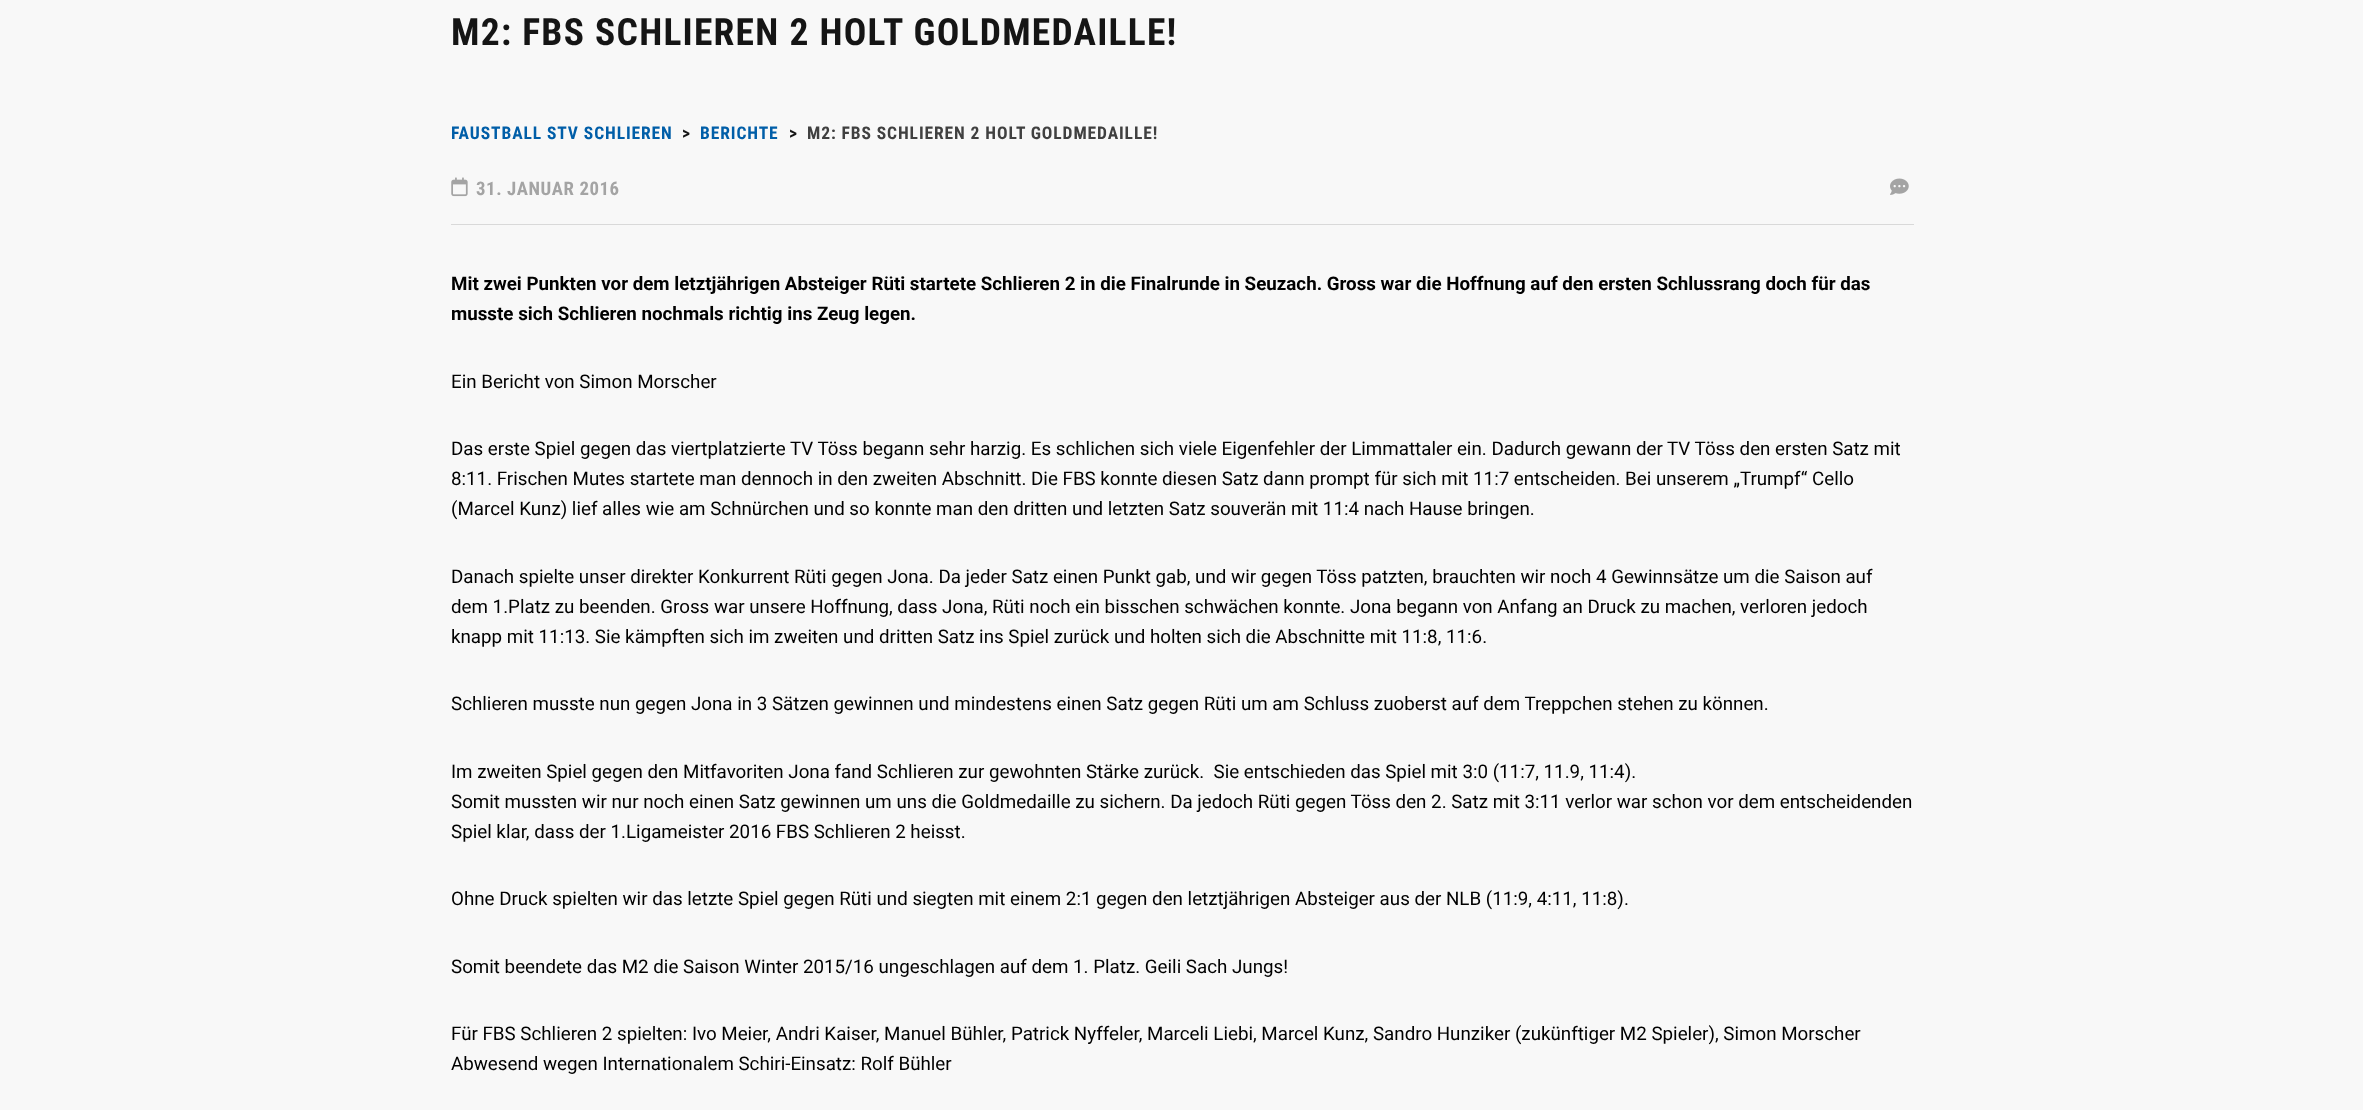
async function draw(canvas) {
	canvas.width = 2363;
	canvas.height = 1110;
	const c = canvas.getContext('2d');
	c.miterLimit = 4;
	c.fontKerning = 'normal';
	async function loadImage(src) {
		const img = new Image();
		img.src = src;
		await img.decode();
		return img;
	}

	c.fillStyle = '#f8f8f8';
	c.fillRect(0, 0, 2363, 1110);
	c.letterSpacing = '1.25px';
	c.font = 'bold 37.5px Roboto Condensed';
	c.fillStyle = '#151515';
	c.fillText('M2: FBS SCHLIEREN 2 HOLT GOLDMEDAILLE!', 451, 45);
	c.letterSpacing = '0.9px';
	c.font = 'bold 17.5px Roboto Condensed';
	c.fillStyle = '#005ea8';
	c.fillText('FAUSTBALL STV SCHLIEREN', 451, 139);
	c.fillStyle = '#151515';
	c.fillText('>', 682, 139);
	c.fillStyle = '#005ea8';
	c.fillText('BERICHTE', 700, 139);
	c.fillStyle = '#151515';
	c.fillText('>', 789, 139);
	c.fillStyle = '#404040';
	c.fillText('M2: FBS SCHLIEREN 2 HOLT GOLDMEDAILLE!', 807, 139);
	c.fillStyle = '#d9d9d9';
	c.fillRect(451, 224, 1463, 1);
	c.drawImage(await loadImage('img1.png'), 451, 177, 17, 20);
	c.letterSpacing = '0.6px';
	c.font = 'bold 18.75px Roboto Condensed';
	c.fillStyle = '#a4a4a4';
	c.fillText('31. JANUAR 2016', 476, 195);
	c.drawImage(await loadImage('img2.png'), 1890, 178, 19, 17);
	c.letterSpacing = '0px';
	c.font = 'bold 18.75px Roboto';
	c.fillStyle = '#000';
	c.fillText('Mit zwei Punkten vor dem letztjährigen Absteiger Rüti startete Schlieren 2 in die Finalrunde in Seuzach. Gross war die Hoffnung auf den ersten Schlussrang doch für das', 451, 290);
	c.fillText('musste sich Schlieren nochmals richtig ins Zeug legen.', 451, 320);
	c.font = '18.75px Roboto';
	for (const [text, x, y] of [
		['Ein Bericht von Simon Morscher', 451, 388],
		['Das erste Spiel gegen das viertplatzierte TV Töss begann sehr harzig. Es schlichen sich viele Eigenfehler der Limmattaler ein. Dadurch gewann der TV Töss den ersten Satz mit', 451, 455],
		['8:11. Frischen Mutes startete man dennoch in den zweiten Abschnitt. Die FBS konnte diesen Satz dann prompt für sich mit 11:7 entscheiden. Bei unserem „Trumpf“ Cello', 451, 485],
		['(Marcel Kunz) lief alles wie am Schnürchen und so konnte man den dritten und letzten Satz souverän mit 11:4 nach Hause bringen.', 451, 515],
		['Danach spielte unser direkter Konkurrent Rüti gegen Jona. Da jeder Satz einen Punkt gab, und wir gegen Töss patzten, brauchten wir noch 4 Gewinnsätze um die Saison auf', 451, 583],
		['dem 1.Platz zu beenden. Gross war unsere Hoffnung, dass Jona, Rüti noch ein bisschen schwächen konnte. Jona begann von Anfang an Druck zu machen, verloren jedoch', 451, 613],
		['knapp mit 11:13. Sie kämpften sich im zweiten und dritten Satz ins Spiel zurück und holten sich die Abschnitte mit 11:8, 11:6.', 451, 643],
		['Schlieren musste nun gegen Jona in 3 Sätzen gewinnen und mindestens einen Satz gegen Rüti um am Schluss zuoberst auf dem Treppchen stehen zu können.', 451, 710],
		['Im zweiten Spiel gegen den Mitfavoriten Jona fand Schlieren zur gewohnten Stärke zurück.  Sie entschieden das Spiel mit 3:0 (11:7, 11.9, 11:4).', 451, 778],
		['Somit mussten wir nur noch einen Satz gewinnen um uns die Goldmedaille zu sichern. Da jedoch Rüti gegen Töss den 2. Satz mit 3:11 verlor war schon vor dem entscheidenden', 451, 808],
		['Spiel klar, dass der 1.Ligameister 2016 FBS Schlieren 2 heisst.', 451, 838],
		['Ohne Druck spielten wir das letzte Spiel gegen Rüti und siegten mit einem 2:1 gegen den letztjährigen Absteiger aus der NLB (11:9, 4:11, 11:8).', 451, 905],
		['Somit beendete das M2 die Saison Winter 2015/16 ungeschlagen auf dem 1. Platz. Geili Sach Jungs!', 451, 973],
		['Für FBS Schlieren 2 spielten: Ivo Meier, Andri Kaiser, Manuel Bühler, Patrick Nyffeler, Marceli Liebi, Marcel Kunz, Sandro Hunziker (zukünftiger M2 Spieler), Simon Morscher', 451, 1040],
		['Abwesend wegen Internationalem Schiri-Einsatz: Rolf Bühler', 451, 1070],
	]) {
		c.fillText(text, x, y);
	}
}

draw(document.querySelector('canvas'));
